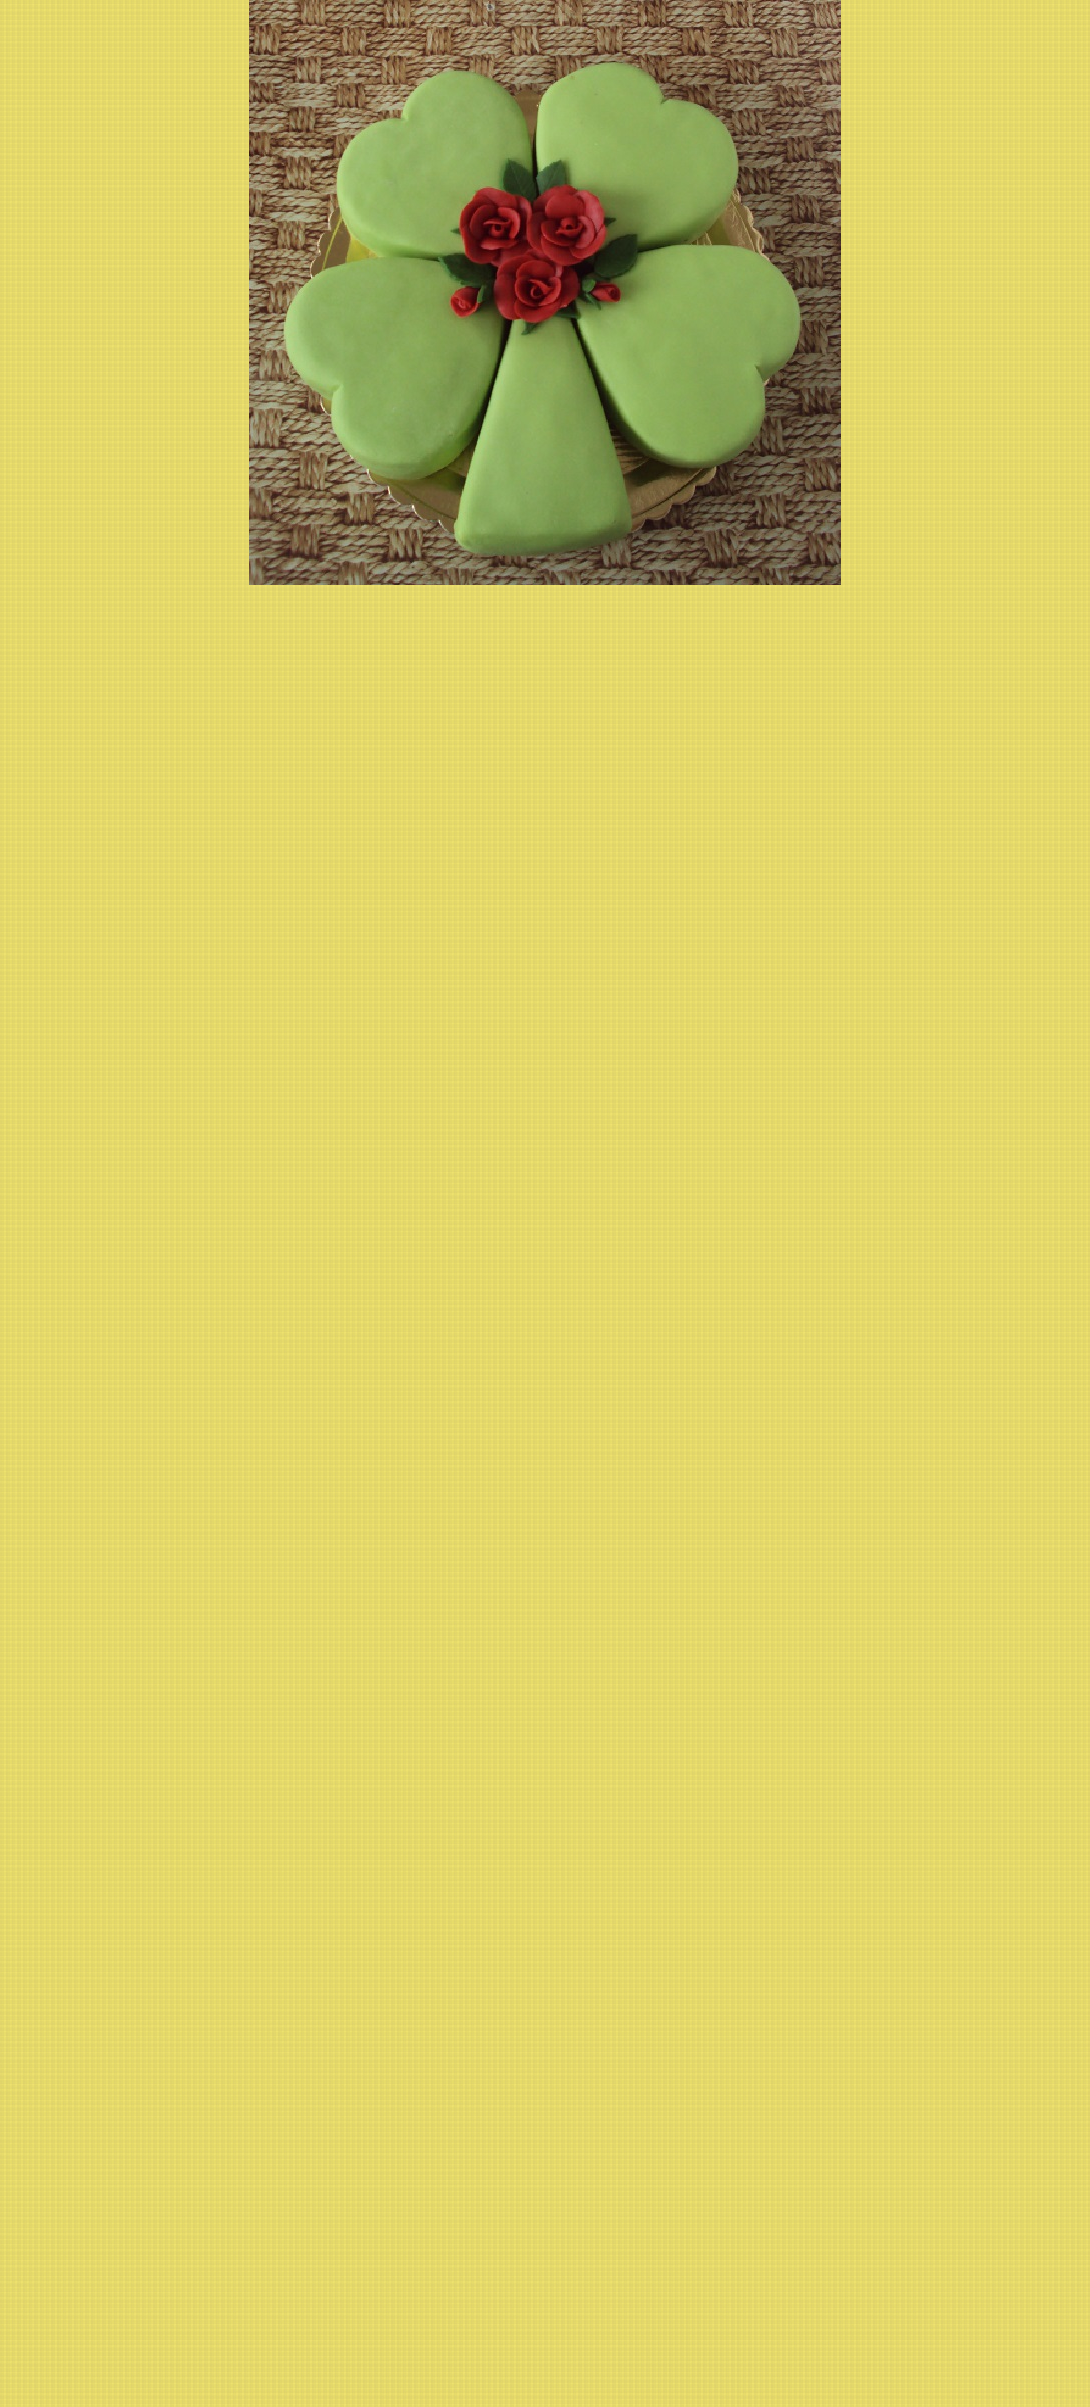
async function draw(canvas) {
	canvas.width = 1090;
	canvas.height = 2407;
	const c = canvas.getContext('2d');
	c.miterLimit = 4;
	c.fontKerning = 'normal';
	async function loadImage(src) {
		const img = new Image();
		img.src = src;
		await img.decode();
		return img;
	}

	c.fillStyle = '#fff';
	c.fillRect(0, 0, 1090, 2407);
	c.drawImage(await loadImage('img1.png'), 0, 0, 1090, 2407);
	c.drawImage(await loadImage('img2.png'), 249, 0, 592, 585);
}

draw(document.querySelector('canvas'));
